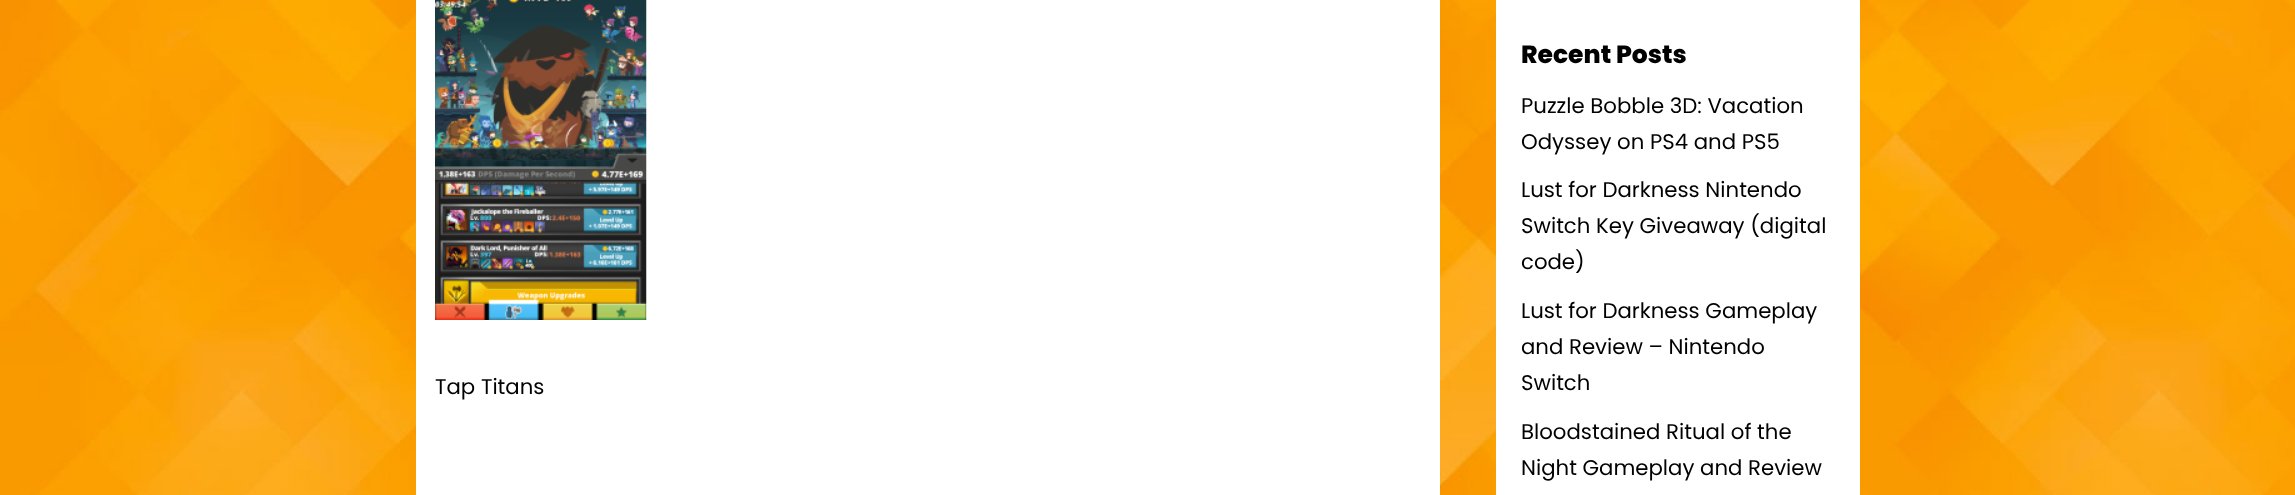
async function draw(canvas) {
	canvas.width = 2295;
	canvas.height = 495;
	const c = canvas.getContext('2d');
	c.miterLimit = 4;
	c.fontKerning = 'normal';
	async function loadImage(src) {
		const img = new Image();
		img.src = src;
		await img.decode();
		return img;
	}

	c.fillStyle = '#fff';
	c.fillRect(0, 0, 2295, 495);
	c.drawImage(await loadImage('img1.png'), 0, 0, 2295, 495);
	c.fillRect(416, 0, 1024, 495);
	c.drawImage(await loadImage('img2.png'), 435, 0, 212, 320);
	c.font = '21.25px Poppins';
	c.fillStyle = '#000';
	c.fillText('Tap Titans', 435, 394);
	c.fillStyle = '#fff';
	c.fillRect(1496, 0, 364, 495);
	c.font = '800 25px Poppins';
	c.fillStyle = '#000';
	c.fillText('Recent Posts', 1521, 63);
	c.font = '21.25px Poppins';
	for (const [text, x, y] of [
		['Puzzle Bobble 3D: Vacation', 1521, 113],
		['Odyssey on PS4 and PS5', 1521, 149],
		['Lust for Darkness Nintendo', 1521, 197],
		['Switch Key Giveaway (digital', 1521, 233],
		['code)', 1521, 269],
		['Lust for Darkness Gameplay', 1521, 318],
		['and Review – Nintendo', 1521, 354],
		['Switch', 1521, 390],
		['Bloodstained Ritual of the', 1521, 439],
		['Night Gameplay and Review', 1521, 475],
	]) {
		c.fillText(text, x, y);
	}
}

draw(document.querySelector('canvas'));
